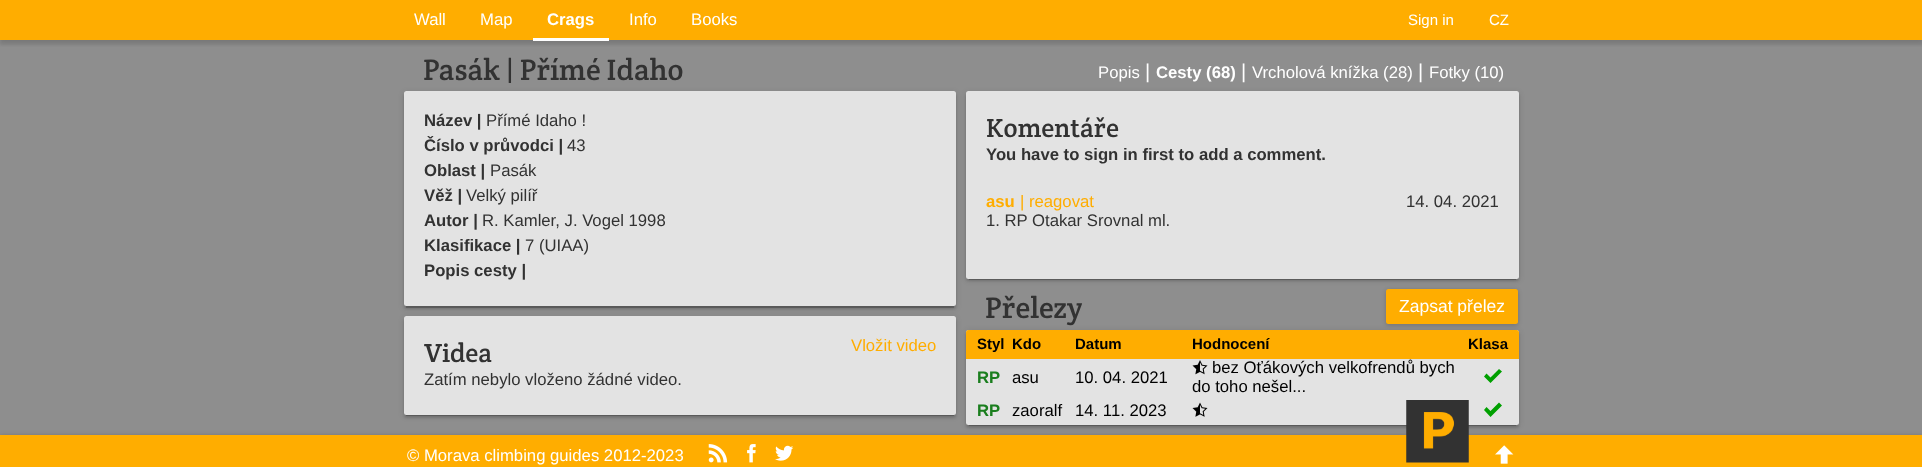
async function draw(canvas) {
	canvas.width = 1922;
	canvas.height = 467;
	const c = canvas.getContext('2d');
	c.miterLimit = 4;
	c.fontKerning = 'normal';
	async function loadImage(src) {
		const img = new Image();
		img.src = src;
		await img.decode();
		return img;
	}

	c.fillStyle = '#8e8e8e';
	c.fillRect(0, 0, 1922, 467);
	c.fillStyle = '#0000001f';
	c.filter = 'blur(3px)';
	c.beginPath();
	c.rect(0, 1, 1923, 40);
	c.fill();
	c.filter = 'none';
	c.fillStyle = '#00000033';
	c.filter = 'blur(0.5px)';
	c.beginPath();
	c.rect(3, 5, 1917, 35);
	c.fill();
	c.filter = 'none';
	c.fillStyle = '#00000014';
	c.filter = 'blur(1px)';
	c.beginPath();
	c.rect(0, 0, 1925, 45);
	c.fill();
	c.filter = 'none';
	c.fillStyle = '#ffad00';
	c.fillRect(0, 0, 1922, 40);
	c.font = '16.7px Liberation Sans';
	c.fillStyle = '#fff';
	c.fillText('Wall', 414, 25);
	c.fillText('Map', 480, 25);
	c.fillRect(533, 38, 76, 3);
	c.font = 'bold 16.7px Liberation Sans';
	c.fillText('Crags', 547, 25);
	c.font = '16.7px Liberation Sans';
	c.fillText('Info', 629, 25);
	c.fillText('Books', 691, 25);
	c.font = '15px Liberation Sans';
	c.fillText('Sign in', 1408, 25);
	c.fillText('CZ', 1489, 25);
	c.font = '30px Crete Round';
	c.fillStyle = '#323232';
	c.fillText('Pasák | Přímé Idaho', 423, 80);
	c.font = '16.7px Liberation Sans';
	c.fillStyle = '#fff';
	c.fillText('Popis', 1098, 78);
	c.font = '20px Liberation Sans';
	c.fillText('|', 1145, 78);
	c.font = 'bold 16.7px Liberation Sans';
	c.fillText('Cesty (68)', 1156, 78);
	c.font = '20px Liberation Sans';
	c.fillText('|', 1241, 78);
	c.font = '16.7px Liberation Sans';
	c.fillText('Vrcholová knížka (28)', 1252, 78);
	c.font = '20px Liberation Sans';
	c.fillText('|', 1418, 78);
	c.font = '16.7px Liberation Sans';
	c.fillText('Fotky (10)', 1429, 78);
	c.fillStyle = '#0000001f';
	c.filter = 'blur(3px)';
	c.beginPath();
	c.roundRect(404, 93, 552, 215, 2.5);
	c.fill();
	c.filter = 'none';
	c.fillStyle = '#00000033';
	c.filter = 'blur(0.5px)';
	c.beginPath();
	c.rect(406, 98, 548, 210);
	c.fill();
	c.filter = 'none';
	c.fillStyle = '#00000024';
	c.filter = 'blur(1px)';
	c.beginPath();
	c.roundRect(404, 94, 552, 215, 2.5);
	c.fill();
	c.filter = 'none';
	c.fillStyle = '#e3e3e3';
	c.beginPath();
	c.roundRect(404, 91, 552, 215, 2.5);
	c.fill();
	c.font = 'bold 16.7px Liberation Sans';
	c.fillStyle = '#323232';
	c.fillText('Název |', 424, 126);
	c.font = '16.7px Liberation Sans';
	c.fillText('Přímé Idaho !', 486, 126);
	c.font = 'bold 16.7px Liberation Sans';
	c.fillText('Číslo v průvodci |', 424, 151);
	c.font = '16.7px Liberation Sans';
	c.fillText('43', 567, 151);
	c.font = 'bold 16.7px Liberation Sans';
	c.fillText('Oblast |', 424, 176);
	c.font = '16.7px Liberation Sans';
	c.fillText('Pasák', 490, 176);
	c.font = 'bold 16.7px Liberation Sans';
	c.fillText('Věž |', 424, 201);
	c.font = '16.7px Liberation Sans';
	c.fillText('Velký pilíř', 466, 201);
	c.font = 'bold 16.7px Liberation Sans';
	c.fillText('Autor |', 424, 226);
	c.font = '16.7px Liberation Sans';
	c.fillText('R. Kamler, J. Vogel 1998', 482, 226);
	c.font = 'bold 16.7px Liberation Sans';
	c.fillText('Klasifikace |', 424, 251);
	c.font = '16.7px Liberation Sans';
	c.fillText('7 (UIAA)', 525, 251);
	c.font = 'bold 16.7px Liberation Sans';
	c.fillText('Popis cesty |', 424, 276);
	c.fillStyle = '#0000001f';
	c.filter = 'blur(3px)';
	c.beginPath();
	c.roundRect(404, 318, 552, 98, 2.5);
	c.fill();
	c.filter = 'none';
	c.fillStyle = '#00000033';
	c.filter = 'blur(0.5px)';
	c.beginPath();
	c.rect(406, 323, 548, 93);
	c.fill();
	c.filter = 'none';
	c.fillStyle = '#00000024';
	c.filter = 'blur(1px)';
	c.beginPath();
	c.roundRect(404, 319, 552, 99, 2.5);
	c.fill();
	c.filter = 'none';
	c.fillStyle = '#e3e3e3';
	c.beginPath();
	c.roundRect(404, 316, 552, 99, 2.5);
	c.fill();
	c.font = '26.5px Crete Round';
	c.fillStyle = '#323232';
	c.fillText('Videa', 424, 362);
	c.font = '16.7px Liberation Sans';
	c.fillStyle = '#ffad00';
	c.fillText('Vložit video', 851, 351);
	c.fillStyle = '#323232';
	c.fillText('Zatím nebylo vloženo žádné video.', 424, 385);
	c.fillStyle = '#00000033';
	c.filter = 'blur(2px)';
	c.beginPath();
	c.roundRect(1386, 290, 132, 35, 2.5);
	c.fill();
	c.filter = 'none';
	c.fillStyle = '#ffad00';
	c.beginPath();
	c.roundRect(1386, 289, 132, 35, 2.5);
	c.fill();
	c.fillStyle = '#0000001f';
	c.filter = 'blur(3px)';
	c.beginPath();
	c.roundRect(966, 93, 553, 187, 2.5);
	c.fill();
	c.filter = 'none';
	c.fillStyle = '#00000033';
	c.filter = 'blur(0.5px)';
	c.beginPath();
	c.rect(969, 98, 547, 182);
	c.fill();
	c.filter = 'none';
	c.fillStyle = '#00000024';
	c.filter = 'blur(1px)';
	c.beginPath();
	c.roundRect(966, 94, 553, 187, 2.5);
	c.fill();
	c.filter = 'none';
	c.fillStyle = '#e3e3e3';
	c.beginPath();
	c.roundRect(966, 91, 553, 188, 2.5);
	c.fill();
	c.font = '26.5px Crete Round';
	c.fillStyle = '#323232';
	c.fillText('Komentáře', 986, 137);
	c.font = 'bold 16.7px Liberation Sans';
	c.fillText('You have to sign in first to add a comment.', 986, 160);
	c.fillStyle = '#ffad00';
	c.fillText('asu', 986, 207);
	c.font = '16.7px Liberation Sans';
	c.fillText('| reagovat', 1020, 207);
	c.fillStyle = '#323232';
	c.fillText('14. 04. 2021', 1406, 207);
	c.fillText('1. RP Otakar Srovnal ml.', 986, 226);
	c.font = '30px Crete Round';
	c.fillText('Přelezy', 985, 318);
	c.font = '17.5px Liberation Sans';
	c.fillStyle = '#fff';
	c.fillText('Zapsat přelez', 1399, 312);
	c.fillStyle = '#0000001f';
	c.filter = 'blur(3px)';
	c.beginPath();
	c.rect(0, 436, 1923, 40);
	c.fill();
	c.filter = 'none';
	c.fillStyle = '#00000014';
	c.filter = 'blur(1px)';
	c.beginPath();
	c.rect(0, 435, 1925, 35);
	c.fill();
	c.filter = 'none';
	c.fillStyle = '#ffad00';
	c.fillRect(0, 435, 1922, 32);
	c.fillStyle = '#0000001f';
	c.filter = 'blur(3px)';
	c.beginPath();
	c.roundRect(966, 331, 553, 95, 2.5);
	c.fill();
	c.filter = 'none';
	c.fillStyle = '#00000033';
	c.filter = 'blur(0.5px)';
	c.beginPath();
	c.rect(969, 336, 547, 90);
	c.fill();
	c.filter = 'none';
	c.fillStyle = '#00000024';
	c.filter = 'blur(1px)';
	c.beginPath();
	c.roundRect(966, 333, 553, 95, 2.5);
	c.fill();
	c.filter = 'none';
	c.fillStyle = '#e3e3e3';
	c.beginPath();
	c.roundRect(966, 330, 553, 95, 2.5);
	c.fill();
	c.fillStyle = '#ffad00';
	c.beginPath();
	c.roundRect(966, 330, 12, 29, [2.5, 0, 0, 0]);
	c.fill();
	c.fillRect(978, 330, 491, 29);
	c.font = 'bold 15px Liberation Sans';
	c.fillStyle = '#000';
	for (const [text, x, y] of [
		['Styl', 977, 349],
		['Kdo', 1012, 349],
		['Datum', 1075, 349],
		['Hodnocení', 1192, 349],
	]) {
		c.fillText(text, x, y);
	}
	c.fillStyle = '#ffad00';
	c.beginPath();
	c.roundRect(1469, 330, 50, 29, [0, 2.5, 0, 0]);
	c.fill();
	c.fillStyle = '#000';
	c.fillText('Klasa', 1468, 349);
	c.font = 'bold 16.7px Liberation Sans';
	c.fillStyle = '#1a7e1e';
	c.fillText('RP', 977, 383);
	c.font = '16.7px Liberation Sans';
	c.fillStyle = '#000';
	c.fillText('asu', 1012, 383);
	c.fillText('10. 04. 2021', 1075, 383);
	c.drawImage(await loadImage('img1.png'), 1192, 360, 16, 15);
	c.fillText('bez Oťákových velkofrendů bych', 1212, 373);
	c.fillText('do toho nešel...', 1192, 392);
	c.fillStyle = '#00a000';
	c.beginPath();
	c.moveTo(1499, 369);
	c.lineTo(1490.5, 377.5);
	c.lineTo(1486.5, 373.5);
	c.lineTo(1484, 376.5);
	c.lineTo(1490.5, 383);
	c.lineTo(1502, 371.5);
	c.closePath();
	c.fill();
	c.font = 'bold 16.7px Liberation Sans';
	c.fillStyle = '#1a7e1e';
	c.fillText('RP', 977, 416);
	c.font = '16.7px Liberation Sans';
	c.fillStyle = '#000';
	c.fillText('zaoralf', 1012, 416);
	c.fillText('14. 11. 2023', 1075, 416);
	c.drawImage(await loadImage('img2.png'), 1192, 402, 16, 15);
	c.fillStyle = '#00a000';
	c.beginPath();
	c.moveTo(1499, 402.5);
	c.lineTo(1490.5, 411);
	c.lineTo(1486.5, 407);
	c.lineTo(1484, 410);
	c.lineTo(1490.5, 417);
	c.lineTo(1502, 405.5);
	c.closePath();
	c.fill();
	c.fillStyle = '#fff';
	c.fillText('© Morava climbing guides 2012-2023', 407, 461);
	c.drawImage(await loadImage('img3.png'), 708, 444, 20, 19);
	c.drawImage(await loadImage('img4.png'), 747, 444, 9, 19);
	c.drawImage(await loadImage('img5.png'), 775, 445, 19, 16);
	c.drawImage(await loadImage('img6.png'), 1406, 400, 63, 63);
	c.drawImage(await loadImage('img7.png'), 1495, 445, 19, 19);
}

draw(document.querySelector('canvas'));
